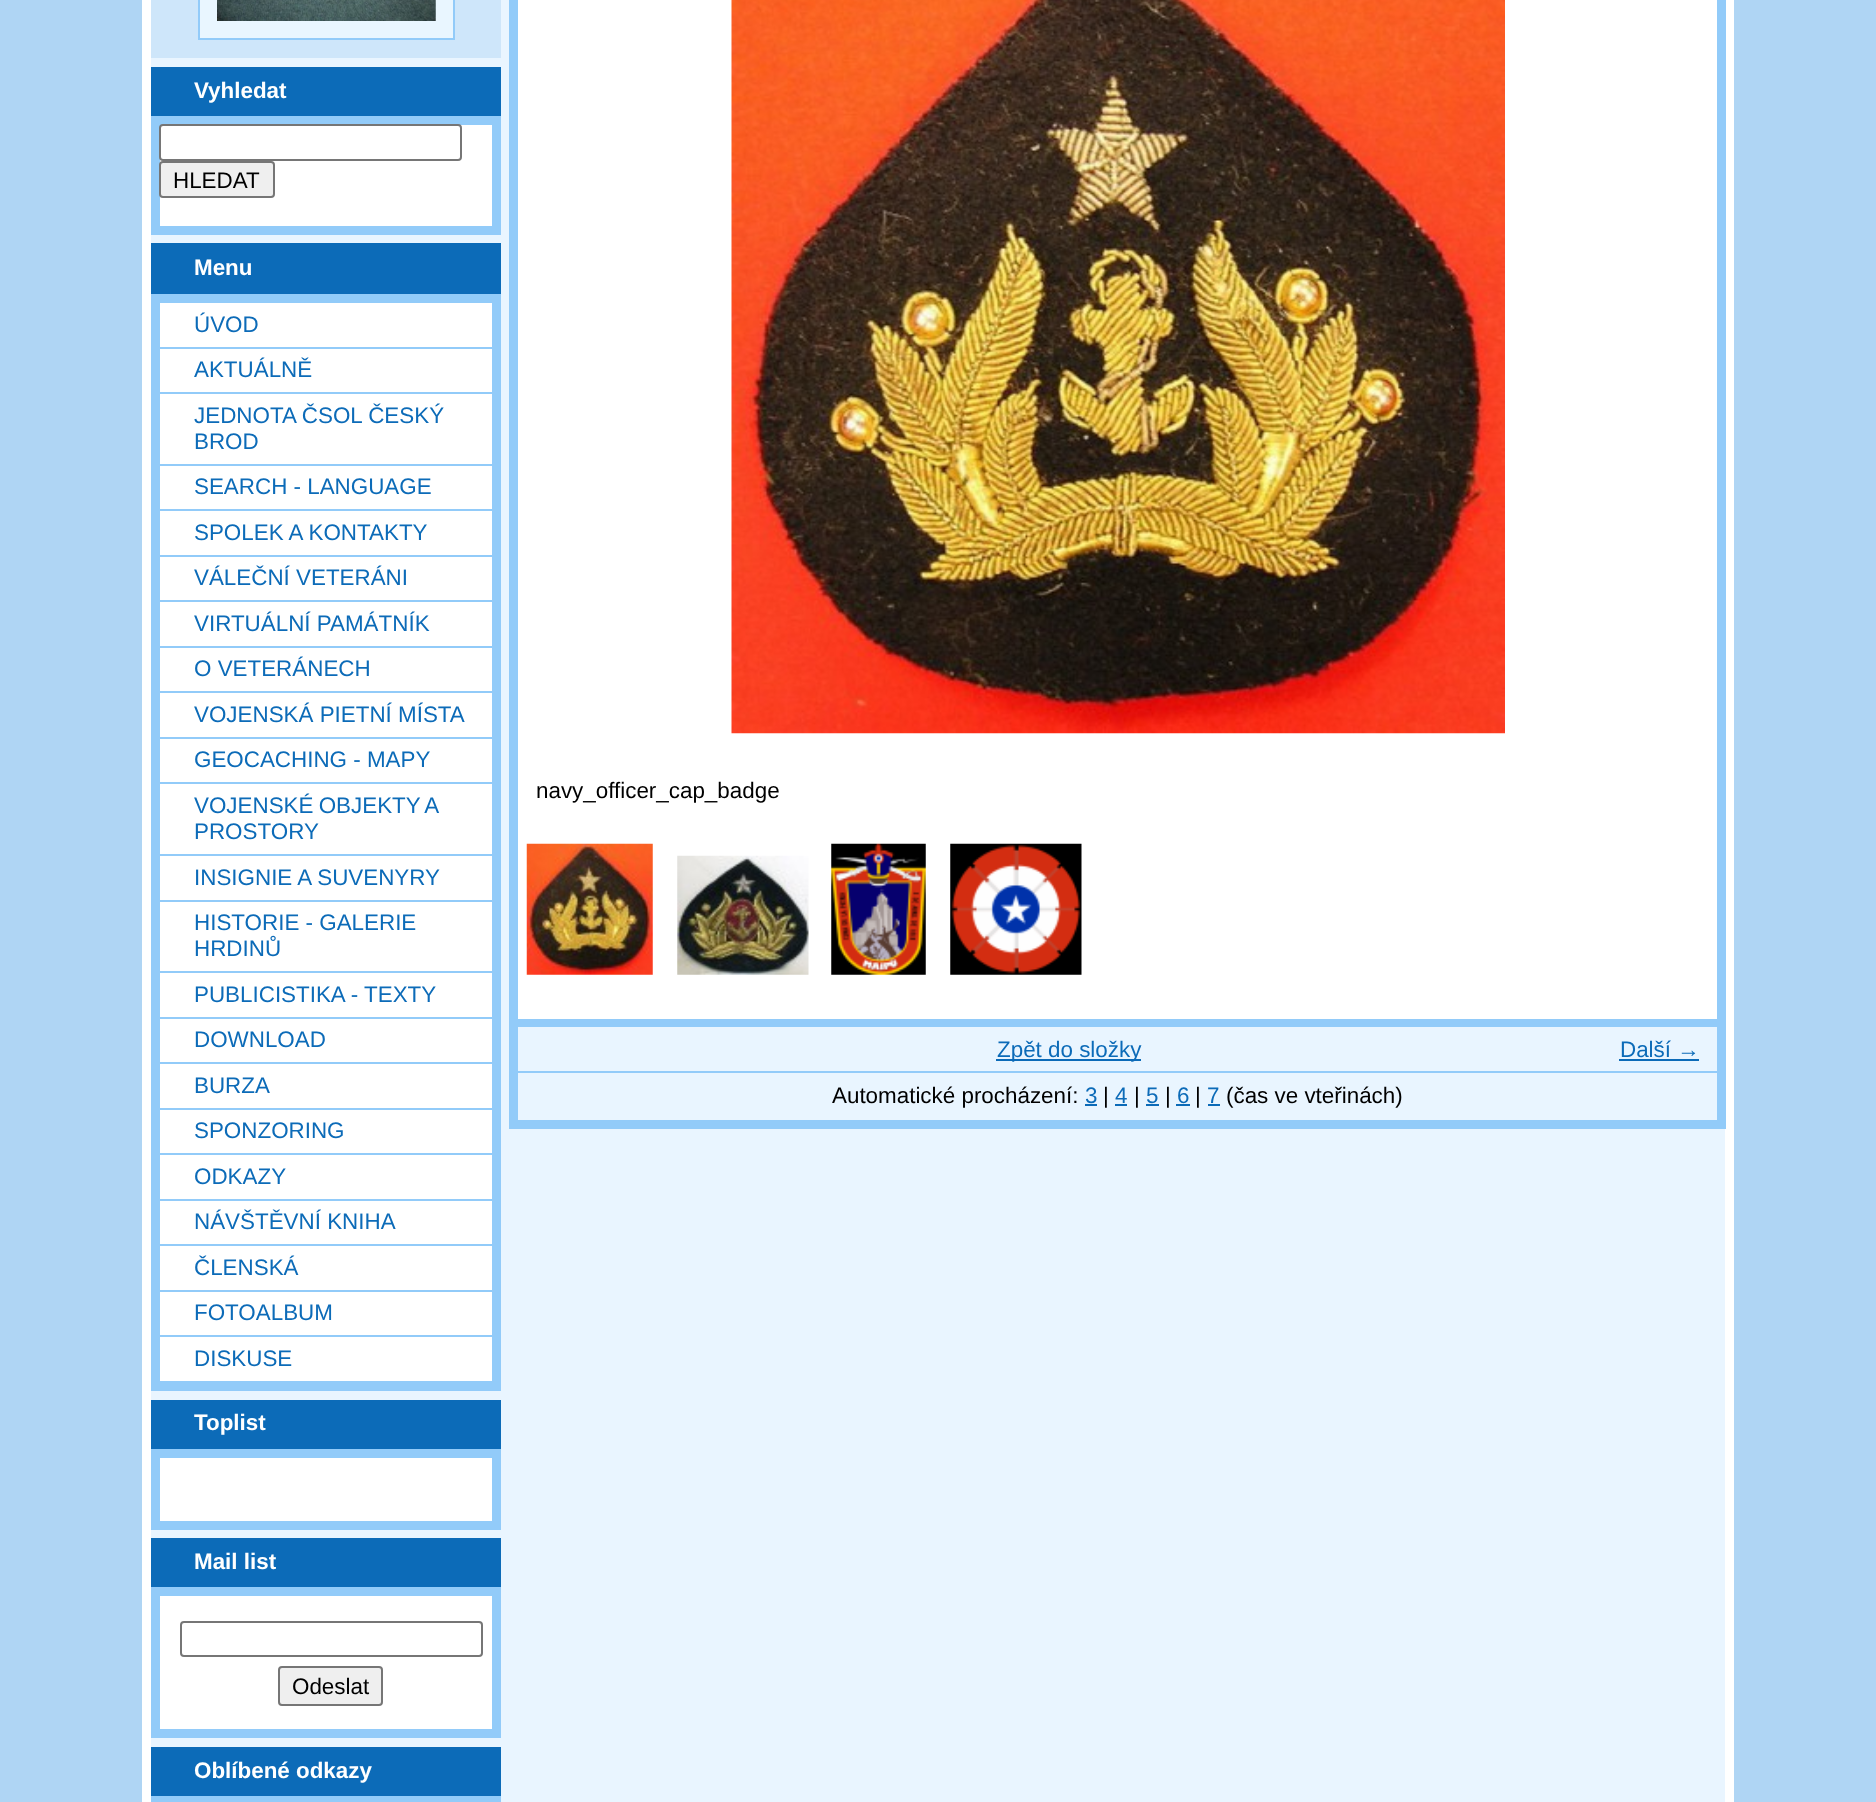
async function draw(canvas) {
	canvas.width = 1876;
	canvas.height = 1802;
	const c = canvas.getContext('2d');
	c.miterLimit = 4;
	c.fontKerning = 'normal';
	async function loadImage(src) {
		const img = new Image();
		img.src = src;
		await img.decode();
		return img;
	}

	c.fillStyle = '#afd5f4';
	c.fillRect(0, 0, 1876, 1802);
	c.fillStyle = '#e9f5ff';
	c.beginPath();
	c.rect(146.5, -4.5, 1583, 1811);
	c.fill();
	c.strokeStyle = '#fff';
	c.lineWidth = 9;
	c.stroke();
	c.fillStyle = '#cee6fa';
	c.fillRect(151, 0, 350, 58);
	c.fillStyle = '#e9f6ff';
	c.beginPath();
	c.rect(199, -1, 255, 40);
	c.fill();
	c.strokeStyle = '#92cbf9';
	c.lineWidth = 2;
	c.stroke();
	c.drawImage(await loadImage('img1.png'), 217, 0, 219, 21);
	c.fillStyle = '#0c6bb8';
	c.fillRect(151, 67, 350, 49);
	c.font = 'bold 22.4px Liberation Sans';
	c.fillStyle = '#fff';
	c.fillText('Vyhledat', 194, 98);
	c.beginPath();
	c.rect(155.5, 120.5, 341, 110);
	c.fill();
	c.lineWidth = 9;
	c.stroke();
	c.beginPath();
	c.roundRect(160, 125, 301, 35, 3);
	c.fill();
	c.strokeStyle = '#767676';
	c.lineWidth = 2;
	c.stroke();
	c.fillStyle = '#efefef';
	c.beginPath();
	c.roundRect(160, 162, 114, 35, 3);
	c.fill();
	c.stroke();
	c.font = '22.4px Liberation Sans';
	c.fillStyle = '#000';
	c.fillText('HLEDAT', 173, 188);
	c.fillStyle = '#0c6bb8';
	c.fillRect(151, 243, 350, 51);
	c.font = 'bold 22.4px Liberation Sans';
	c.fillStyle = '#fff';
	c.fillText('Menu', 194, 275);
	c.fillRect(160, 303, 332, 1078);
	c.strokeStyle = '#92cbf9';
	c.lineWidth = 9;
	c.strokeRect(155.5, 298.5, 341, 1088);
	c.fillStyle = '#92cbf9';
	c.fillRect(159, 347, 333, 2);
	c.font = '22.4px Liberation Sans';
	c.fillStyle = '#0c6bb8';
	c.fillText('ÚVOD', 194, 332);
	c.fillStyle = '#92cbf9';
	c.fillRect(159, 392, 333, 2);
	c.fillStyle = '#0c6bb8';
	c.fillText('AKTUÁLNĚ', 194, 377);
	c.fillStyle = '#92cbf9';
	c.fillRect(159, 464, 333, 2);
	c.fillStyle = '#0c6bb8';
	c.fillText('JEDNOTA ČSOL ČESKÝ', 194, 423);
	c.fillText('BROD', 194, 449);
	c.fillStyle = '#92cbf9';
	c.fillRect(159, 509, 333, 2);
	c.fillStyle = '#0c6bb8';
	c.fillText('SEARCH - LANGUAGE', 194, 494);
	c.fillStyle = '#92cbf9';
	c.fillRect(159, 555, 333, 2);
	c.fillStyle = '#0c6bb8';
	c.fillText('SPOLEK A KONTAKTY', 194, 540);
	c.fillStyle = '#92cbf9';
	c.fillRect(159, 600, 333, 2);
	c.fillStyle = '#0c6bb8';
	c.fillText('VÁLEČNÍ VETERÁNI', 194, 585);
	c.fillStyle = '#92cbf9';
	c.fillRect(159, 646, 333, 2);
	c.fillStyle = '#0c6bb8';
	c.fillText('VIRTUÁLNÍ PAMÁTNÍK', 194, 631);
	c.fillStyle = '#92cbf9';
	c.fillRect(159, 691, 333, 2);
	c.fillStyle = '#0c6bb8';
	c.fillText('O VETERÁNECH', 194, 676);
	c.fillStyle = '#92cbf9';
	c.fillRect(159, 737, 333, 2);
	c.fillStyle = '#0c6bb8';
	c.fillText('VOJENSKÁ PIETNÍ MÍSTA', 194, 722);
	c.fillStyle = '#92cbf9';
	c.fillRect(159, 782, 333, 2);
	c.fillStyle = '#0c6bb8';
	c.fillText('GEOCACHING - MAPY', 194, 767);
	c.fillStyle = '#92cbf9';
	c.fillRect(159, 854, 333, 2);
	c.wordSpacing = '-1px';
	c.fillStyle = '#0c6bb8';
	c.fillText('VOJENSKÉ OBJEKTY A', 194, 813);
	c.wordSpacing = '0px';
	c.fillText('PROSTORY', 194, 839);
	c.fillStyle = '#92cbf9';
	c.fillRect(159, 900, 333, 2);
	c.fillStyle = '#0c6bb8';
	c.fillText('INSIGNIE A SUVENYRY', 194, 885);
	c.fillStyle = '#92cbf9';
	c.fillRect(159, 971, 333, 2);
	c.fillStyle = '#0c6bb8';
	c.fillText('HISTORIE - GALERIE', 194, 930);
	c.fillText('HRDINŮ', 194, 956);
	c.fillStyle = '#92cbf9';
	c.fillRect(159, 1017, 333, 2);
	c.fillStyle = '#0c6bb8';
	c.fillText('PUBLICISTIKA - TEXTY', 194, 1002);
	c.fillStyle = '#92cbf9';
	c.fillRect(159, 1062, 333, 2);
	c.fillStyle = '#0c6bb8';
	c.fillText('DOWNLOAD', 194, 1047);
	c.fillStyle = '#92cbf9';
	c.fillRect(159, 1108, 333, 2);
	c.fillStyle = '#0c6bb8';
	c.fillText('BURZA', 194, 1093);
	c.fillStyle = '#92cbf9';
	c.fillRect(159, 1153, 333, 2);
	c.fillStyle = '#0c6bb8';
	c.fillText('SPONZORING', 194, 1138);
	c.fillStyle = '#92cbf9';
	c.fillRect(159, 1199, 333, 2);
	c.fillStyle = '#0c6bb8';
	c.fillText('ODKAZY', 194, 1184);
	c.fillStyle = '#92cbf9';
	c.fillRect(159, 1244, 333, 2);
	c.fillStyle = '#0c6bb8';
	c.fillText('NÁVŠTĚVNÍ KNIHA', 194, 1229);
	c.fillStyle = '#92cbf9';
	c.fillRect(159, 1290, 333, 2);
	c.fillStyle = '#0c6bb8';
	c.fillText('ČLENSKÁ', 194, 1275);
	c.fillStyle = '#92cbf9';
	c.fillRect(159, 1335, 333, 2);
	c.fillStyle = '#0c6bb8';
	c.fillText('FOTOALBUM', 194, 1320);
	c.fillStyle = '#92cbf9';
	c.fillRect(159, 1381, 333, 1);
	c.fillStyle = '#0c6bb8';
	c.fillText('DISKUSE', 194, 1366);
	c.fillRect(151, 1400, 350, 49);
	c.font = 'bold 22.4px Liberation Sans';
	c.fillStyle = '#fff';
	c.fillText('Toplist', 194, 1430);
	c.beginPath();
	c.rect(155.5, 1453.5, 341, 72);
	c.fill();
	c.stroke();
	c.fillStyle = '#0c6bb8';
	c.fillRect(151, 1538, 350, 49);
	c.fillStyle = '#fff';
	c.fillText('Mail list', 194, 1569);
	c.beginPath();
	c.rect(155.5, 1591.5, 341, 142);
	c.fill();
	c.stroke();
	c.beginPath();
	c.roundRect(181, 1622, 301, 34, 3);
	c.strokeStyle = '#767676';
	c.lineWidth = 2;
	c.stroke();
	c.fillStyle = '#efefef';
	c.beginPath();
	c.roundRect(279, 1667, 103, 38, 3);
	c.fill();
	c.stroke();
	c.font = '22.4px Liberation Sans';
	c.fillStyle = '#000';
	c.fillText('Odeslat', 292, 1694);
	c.fillStyle = '#0c6bb8';
	c.fillRect(151, 1747, 350, 49);
	c.font = 'bold 22.4px Liberation Sans';
	c.fillStyle = '#fff';
	c.fillText('Oblíbené odkazy', 194, 1778);
	c.strokeStyle = '#92cbf9';
	c.lineWidth = 9;
	c.strokeRect(155.5, 1800.5, 341, 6);
	c.fillRect(518, 0, 1199, 1019);
	c.strokeRect(513.5, -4.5, 1208, 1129);
	c.drawImage(await loadImage('img2.png'), 731, 0, 774, 734);
	c.font = '22.4px Liberation Sans';
	c.fillStyle = '#000';
	c.fillText('navy_officer_cap_badge', 536, 798);
	c.drawImage(await loadImage('img3.png'), 526, 843, 127, 132);
	c.drawImage(await loadImage('img4.png'), 677, 855, 132, 120);
	c.drawImage(await loadImage('img5.png'), 831, 843, 95, 132);
	c.drawImage(await loadImage('img6.png'), 950, 843, 132, 132);
	c.fillStyle = '#92cbf9';
	c.fillRect(518, 1019, 1199, 8);
	c.fillStyle = '#0c6bb8';
	c.fillRect(996, 1059, 145, 2);
	c.fillText('Zpět do složky', 997, 1057);
	c.fillText('Další →', 1620, 1057);
	c.fillRect(1619, 1059, 80, 2);
	c.fillStyle = '#92cbf9';
	c.fillRect(518, 1071, 1199, 2);
	c.fillStyle = '#000';
	c.fillText('Automatické procházení:', 832, 1103);
	c.fillStyle = '#0c6bb8';
	c.fillText('3', 1085, 1103);
	c.fillRect(1085, 1104, 12, 2);
	c.fillStyle = '#000';
	c.fillText('|', 1103, 1103);
	c.fillStyle = '#0c6bb8';
	c.fillText('4', 1115, 1103);
	c.fillRect(1115, 1104, 12, 2);
	c.fillStyle = '#000';
	c.fillText('|', 1134, 1103);
	c.fillStyle = '#0c6bb8';
	c.fillText('5', 1146, 1103);
	c.fillRect(1146, 1104, 13, 2);
	c.fillStyle = '#000';
	c.fillText('|', 1165, 1103);
	c.fillStyle = '#0c6bb8';
	c.fillText('6', 1177, 1103);
	c.fillRect(1176, 1104, 14, 2);
	c.fillStyle = '#000';
	c.fillText('|', 1195, 1103);
	c.fillStyle = '#0c6bb8';
	c.fillText('7', 1207, 1103);
	c.fillRect(1208, 1104, 12, 2);
	c.fillStyle = '#000';
	c.fillText('(čas ve vteřinách)', 1226, 1103);
}

draw(document.querySelector('canvas'));
